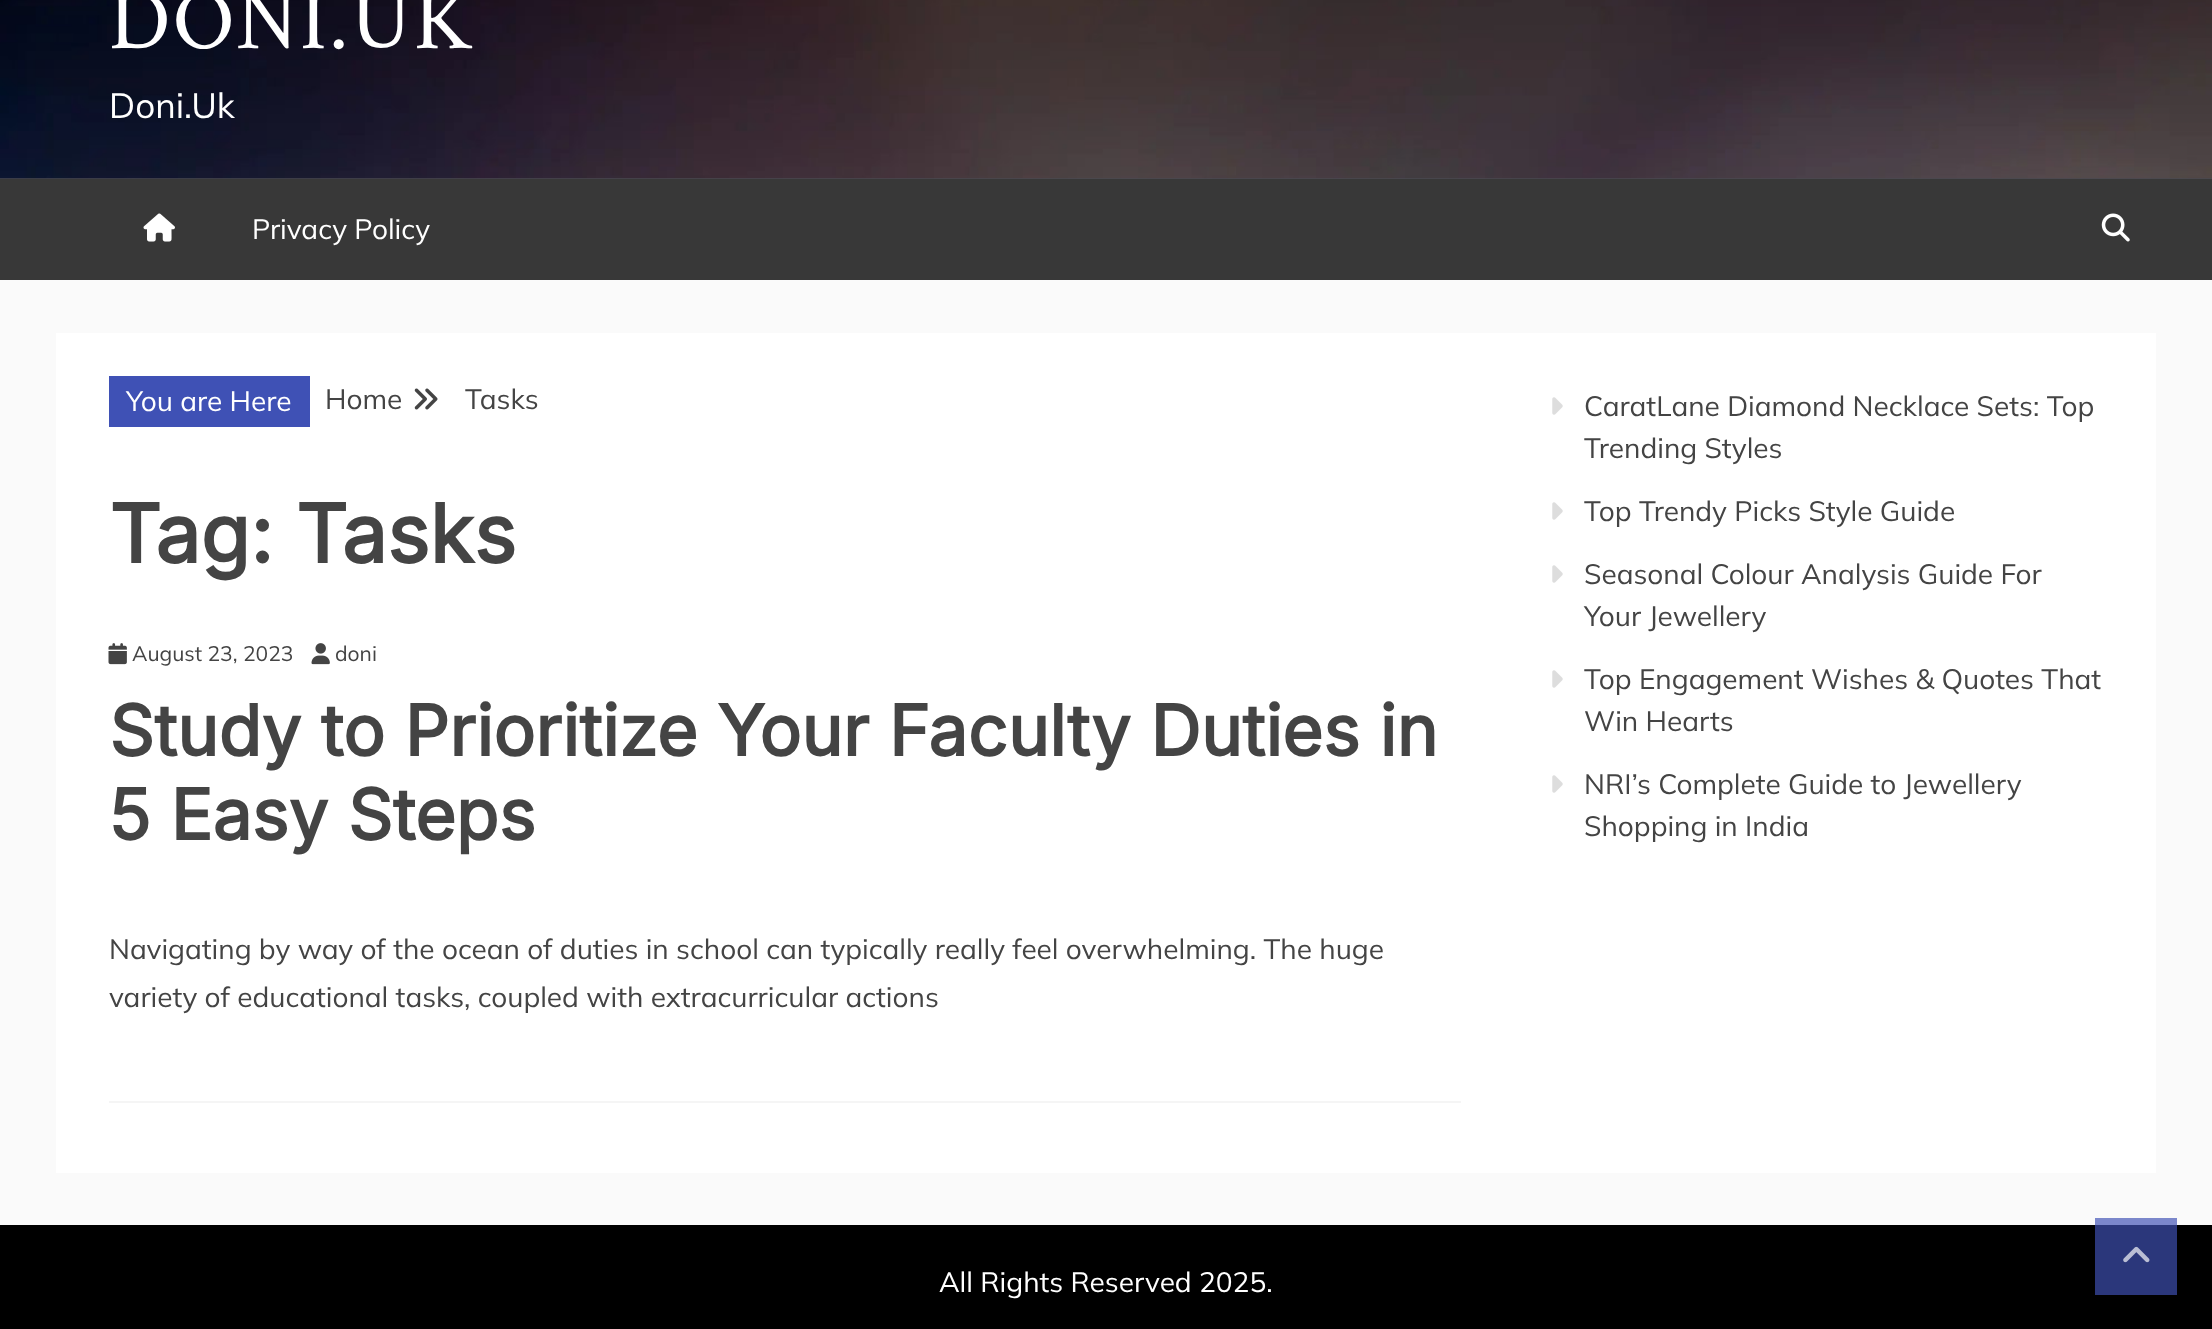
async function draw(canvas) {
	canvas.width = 2212;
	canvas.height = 1329;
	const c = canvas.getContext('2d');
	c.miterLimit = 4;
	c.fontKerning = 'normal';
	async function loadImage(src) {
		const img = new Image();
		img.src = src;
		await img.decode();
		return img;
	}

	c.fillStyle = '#fafafa';
	c.fillRect(0, 0, 2212, 1329);
	c.fillStyle = '#7b87cb';
	c.fillRect(2095, 1218, 82, 7);
	c.fillStyle = '#4a4a50';
	c.fillRect(0, 178, 2212, 1);
	c.drawImage(await loadImage('img1.png'), 0, 0, 2212, 179);
	c.letterSpacing = '1.75px';
	c.font = '87.5px Crimson Text';
	c.fillStyle = '#fff';
	c.fillText('DONI.UK', 109, 48);
	c.letterSpacing = '0px';
	c.font = '200 35px Mulish';
	c.fillText('Doni.Uk', 109, 118);
	c.fillStyle = '#383838';
	c.fillRect(0, 179, 2212, 101);
	c.drawImage(await loadImage('img2.png'), 143, 213, 32, 29);
	c.font = '200 28px Mulish';
	c.fillStyle = '#fff';
	c.fillText('Privacy Policy', 252, 239);
	c.drawImage(await loadImage('img3.png'), 2101, 213, 29, 29);
	c.fillRect(56, 333, 2100, 840);
	c.fillStyle = '#3f51b5';
	c.fillRect(109, 376, 201, 51);
	c.fillStyle = '#fff';
	c.fillText('You are Here', 126, 411);
	c.fillStyle = '#444';
	c.fillText('Home', 325, 409);
	c.drawImage(await loadImage('img4.png'), 414, 388, 24, 22);
	c.fillText('Tasks', 465, 409);
	c.font = 'bold 80.5px Inter';
	c.fillText('Tag: Tasks', 109, 563);
	c.fillStyle = '#f5f5f5';
	c.fillRect(109, 1101, 1352, 2);
	c.drawImage(await loadImage('img5.png'), 108, 643, 19, 22);
	c.font = '200 21px Mulish';
	c.fillStyle = '#444';
	c.fillText('August 23, 2023', 132, 661);
	c.drawImage(await loadImage('img6.png'), 311, 643, 19, 22);
	c.fillText('doni', 335, 661);
	c.font = 'bold 70px Inter';
	c.fillText('Study to Prioritize Your Faculty Duties in', 109, 756);
	c.fillText('5 Easy Steps', 109, 840);
	c.font = '200 28px Mulish';
	c.fillText('Navigating by way of the ocean of duties in school can typically really feel overwhelming. The huge', 109, 959);
	c.fillText('variety of educational tasks, coupled with extracurricular actions', 109, 1007);
	c.drawImage(await loadImage('img7.png'), 1552, 397, 11, 18);
	c.fillText('CaratLane Diamond Necklace Sets: Top', 1584, 416);
	c.fillText('Trending Styles', 1584, 458);
	c.drawImage(await loadImage('img7.png'), 1552, 502, 11, 18);
	c.fillText('Top Trendy Picks Style Guide', 1584, 521);
	c.drawImage(await loadImage('img7.png'), 1552, 565, 11, 18);
	c.fillText('Seasonal Colour Analysis Guide For', 1584, 584);
	c.fillText('Your Jewellery', 1584, 626);
	c.drawImage(await loadImage('img7.png'), 1552, 670, 11, 18);
	c.fillText('Top Engagement Wishes & Quotes That', 1584, 689);
	c.fillText('Win Hearts', 1584, 731);
	c.drawImage(await loadImage('img7.png'), 1552, 775, 11, 18);
	c.fillText('NRI’s Complete Guide to Jewellery', 1584, 794);
	c.fillText('Shopping in India', 1584, 836);
	c.fillStyle = '#000';
	c.fillRect(0, 1225, 2212, 104);
	c.fillStyle = '#2b377b';
	c.fillRect(2095, 1225, 82, 70);
	c.drawImage(await loadImage('img8.png'), 2123, 1246, 27, 17);
	c.fillStyle = '#fff';
	c.fillText('All Rights Reserved 2025.', 939, 1292);
}

draw(document.querySelector('canvas'));
